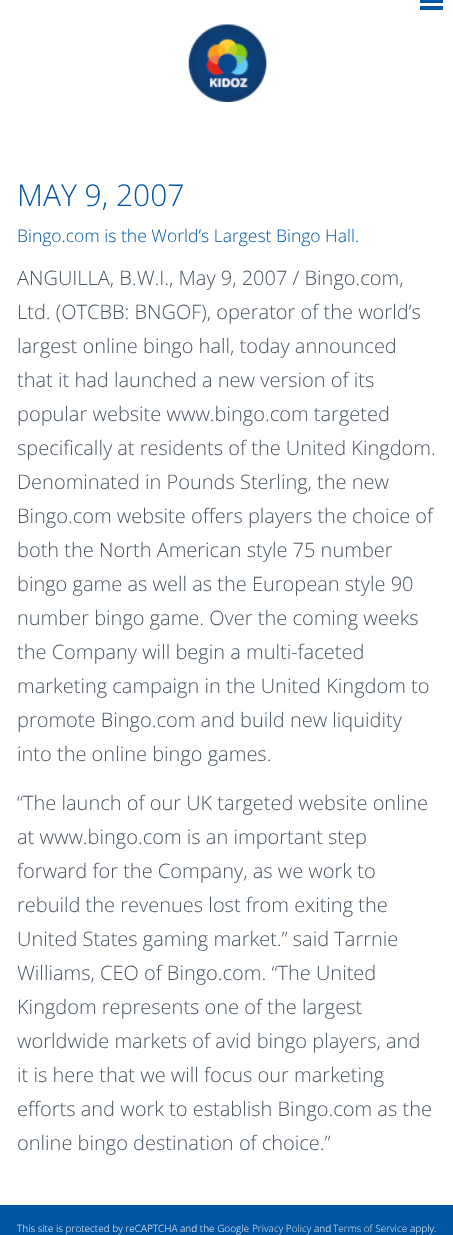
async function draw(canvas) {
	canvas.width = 453;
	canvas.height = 1235;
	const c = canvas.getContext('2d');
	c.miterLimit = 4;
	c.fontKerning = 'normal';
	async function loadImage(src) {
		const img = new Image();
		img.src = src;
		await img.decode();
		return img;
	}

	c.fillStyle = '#fff';
	c.fillRect(0, 0, 453, 1235);
	c.fillStyle = '#0055a3';
	c.fillRect(420, 0, 23, 3);
	c.fillRect(420, 6, 23, 4);
	c.drawImage(await loadImage('img1.png'), 188, 24, 79, 78);
	c.font = '300 30px Open Sans';
	c.fillText('MAY 9, 2007', 17, 206);
	c.font = '300 17.5px Open Sans';
	c.fillText('Bingo.com is the World’s Largest Bingo Hall.', 17, 242);
	c.font = '300 20px Open Sans';
	c.fillStyle = '#485461';
	for (const [text, x, y] of [
		['ANGUILLA, B.W.I., May 9, 2007 / Bingo.com,', 17, 285],
		['Ltd. (OTCBB: BNGOF), operator of the world’s', 17, 319],
		['largest online bingo hall, today announced', 17, 353],
		['that it had launched a new version of its', 17, 387],
		['popular website www.bingo.com targeted', 17, 421],
		['specifically at residents of the United Kingdom.', 17, 455],
		['Denominated in Pounds Sterling, the new', 17, 489],
		['Bingo.com website offers players the choice of', 17, 523],
		['both the North American style 75 number', 17, 557],
		['bingo game as well as the European style 90', 17, 591],
		['number bingo game. Over the coming weeks', 17, 625],
		['the Company will begin a multi-faceted', 17, 659],
		['marketing campaign in the United Kingdom to', 17, 693],
		['promote Bingo.com and build new liquidity', 17, 727],
		['into the online bingo games.', 17, 761],
		['“The launch of our UK targeted website online', 17, 810],
		['at www.bingo.com is an important step', 17, 844],
		['forward for the Company, as we work to', 17, 878],
		['rebuild the revenues lost from exiting the', 17, 912],
		['United States gaming market.” said Tarrnie', 17, 946],
		['Williams, CEO of Bingo.com. “The United', 17, 980],
		['Kingdom represents one of the largest', 17, 1014],
		['worldwide markets of avid bingo players, and', 17, 1048],
		['it is here that we will focus our marketing', 17, 1082],
		['efforts and work to establish Bingo.com as the', 17, 1116],
		['online bingo destination of choice.”', 17, 1150],
	]) {
		c.fillText(text, x, y);
	}
	c.fillStyle = '#0055a3';
	c.fillRect(0, 1205, 453, 30);
	c.font = '300 10px Open Sans';
	c.fillStyle = '#fff';
	c.fillText('This site is protected by reCAPTCHA and the Google', 17, 1232);
	c.fillStyle = '#dfe5ec';
	c.fillText('Privacy Policy', 252, 1232);
	c.fillStyle = '#fff';
	c.fillText('and', 314, 1232);
	c.fillStyle = '#dfe5ec';
	c.fillText('Terms of Service', 333, 1232);
	c.fillStyle = '#fff';
	c.fillText('apply.', 410, 1232);
}

draw(document.querySelector('canvas'));
